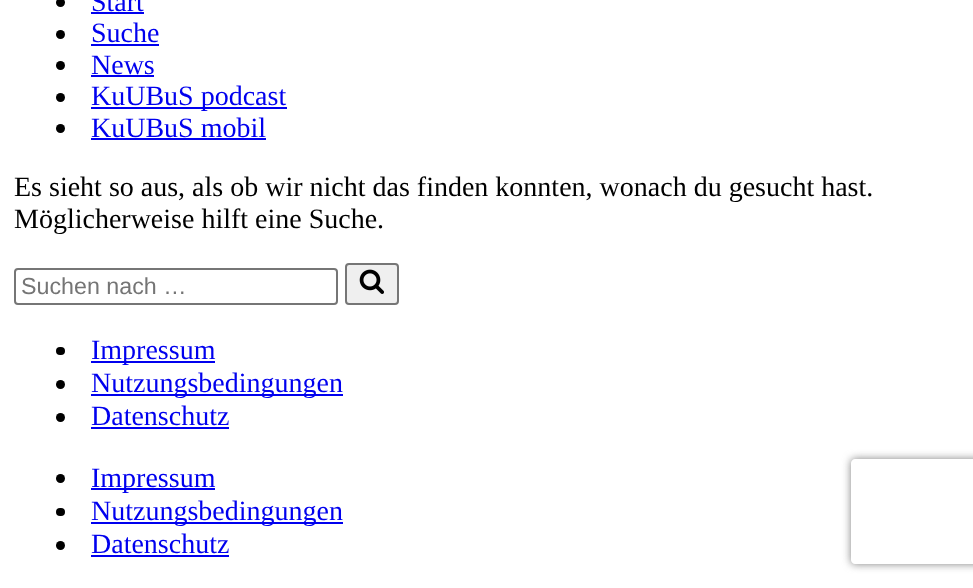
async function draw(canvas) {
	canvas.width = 973;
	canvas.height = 588;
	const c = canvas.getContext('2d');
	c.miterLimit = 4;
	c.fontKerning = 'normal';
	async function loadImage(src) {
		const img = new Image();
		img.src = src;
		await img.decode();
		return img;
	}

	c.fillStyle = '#fff';
	c.fillRect(0, 0, 973, 588);
	c.fillStyle = '#000';
	c.beginPath();
	c.arc(60.5, 2.5, 4.5, 0, 2 * Math.PI);
	c.fill();
	c.font = '28px Liberation Serif';
	c.fillStyle = '#00e';
	c.fillText('Start', 91, 11);
	c.fillRect(91, 12, 53, 2);
	c.fillStyle = '#000';
	c.beginPath();
	c.arc(60.5, 34.5, 4.5, 0, 2 * Math.PI);
	c.fill();
	c.fillStyle = '#00e';
	c.fillText('Suche', 91, 42);
	c.fillRect(91, 44, 68, 2);
	c.fillStyle = '#000';
	c.beginPath();
	c.arc(60.5, 65.5, 4.5, 0, 2 * Math.PI);
	c.fill();
	c.fillStyle = '#00e';
	c.fillText('News', 91, 74);
	c.fillRect(91, 75, 63, 2);
	c.fillStyle = '#000';
	c.beginPath();
	c.arc(60.5, 97.5, 4.5, 0, 2 * Math.PI);
	c.fill();
	c.fillStyle = '#00e';
	c.fillRect(91, 107, 196, 2);
	c.fillText('KuUBuS podcast', 91, 105);
	c.fillStyle = '#000';
	c.beginPath();
	c.arc(60.5, 128.5, 4.5, 0, 2 * Math.PI);
	c.fill();
	c.fillStyle = '#00e';
	c.fillText('KuUBuS mobil', 91, 137);
	c.fillRect(91, 138, 175, 2);
	c.fillStyle = '#000';
	c.fillText('Es sieht so aus, als ob wir nicht das finden konnten, wonach du gesucht hast.', 14, 196);
	c.fillText('Möglicherweise hilft eine Suche.', 14, 228);
	c.beginPath();
	c.roundRect(15, 269, 322, 35, 3);
	c.strokeStyle = '#767676';
	c.lineWidth = 2;
	c.stroke();
	c.font = '23.25px Liberation Sans';
	c.fillStyle = '#757575';
	c.fillText('Suchen nach …', 21, 294);
	c.fillStyle = '#efefef';
	c.beginPath();
	c.roundRect(346, 264, 52, 40, 3);
	c.fill();
	c.stroke();
	c.drawImage(await loadImage('img1.png'), 359, 269, 25, 25);
	c.fillStyle = '#000';
	c.beginPath();
	c.roundRect(56, 347, 9, 8, 4);
	c.fill();
	c.fillStyle = '#00e';
	c.fillRect(91, 361, 124, 2);
	c.font = '28px Liberation Serif';
	c.fillText('Impressum', 91, 359);
	c.fillStyle = '#000';
	c.beginPath();
	c.arc(60.5, 384.5, 4.5, 0, 2 * Math.PI);
	c.fill();
	c.fillStyle = '#00e';
	c.fillRect(91, 394, 252, 2);
	c.fillText('Nutzungsbedingungen', 91, 392);
	c.fillStyle = '#000';
	c.beginPath();
	c.arc(60.5, 417.5, 4.5, 0, 2 * Math.PI);
	c.fill();
	c.fillStyle = '#00e';
	c.fillText('Datenschutz', 91, 425);
	c.fillRect(91, 427, 138, 2);
	c.fillStyle = '#000';
	c.beginPath();
	c.arc(60.5, 478.5, 4.5, 0, 2 * Math.PI);
	c.fill();
	c.fillStyle = '#00e';
	c.fillRect(91, 488, 124, 2);
	c.fillText('Impressum', 91, 487);
	c.fillStyle = '#000';
	c.beginPath();
	c.roundRect(56, 508, 9, 8, 4);
	c.fill();
	c.fillStyle = '#00e';
	c.fillRect(91, 522, 252, 2);
	c.fillText('Nutzungsbedingungen', 91, 520);
	c.fillStyle = '#000';
	c.beginPath();
	c.arc(60.5, 545.5, 4.5, 0, 2 * Math.PI);
	c.fill();
	c.fillStyle = '#00e';
	c.fillText('Datenschutz', 91, 553);
	c.fillRect(91, 555, 138, 2);
	c.save();
	c.beginPath();
	c.moveTo(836, 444);
	c.lineTo(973, 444);
	c.lineTo(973, 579);
	c.lineTo(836, 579);
	c.closePath();
	c.moveTo(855, 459);
	c.lineTo(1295, 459);
	c.bezierCurveTo(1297, 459, 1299, 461, 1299, 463);
	c.lineTo(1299, 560);
	c.bezierCurveTo(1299, 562, 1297, 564, 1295, 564);
	c.lineTo(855, 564);
	c.bezierCurveTo(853, 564, 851, 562, 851, 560);
	c.lineTo(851, 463);
	c.bezierCurveTo(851, 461, 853, 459, 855, 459);
	c.closePath();
	c.clip('evenodd');
	c.fillStyle = '#808080';
	c.filter = 'blur(4.5px)';
	c.beginPath();
	c.roundRect(851, 459, 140, 105, 4);
	c.fill();
	c.filter = 'none';
	c.restore();
}

draw(document.querySelector('canvas'));
